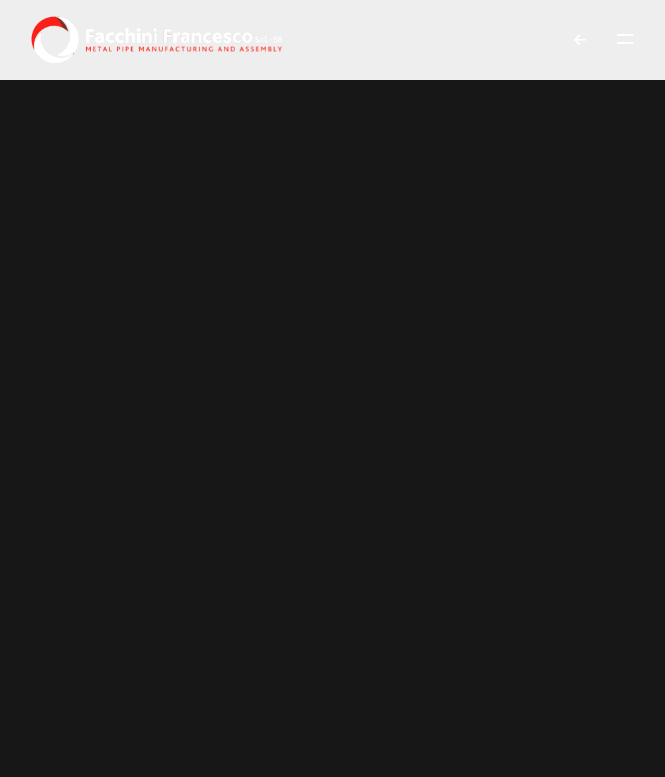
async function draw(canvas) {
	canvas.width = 665;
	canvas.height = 777;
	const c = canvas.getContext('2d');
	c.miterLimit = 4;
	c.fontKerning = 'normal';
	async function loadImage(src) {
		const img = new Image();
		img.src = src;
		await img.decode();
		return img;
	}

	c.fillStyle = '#171717';
	c.fillRect(0, 0, 665, 777);
	c.fillStyle = '#eee';
	c.fillRect(0, 0, 665, 80);
	c.drawImage(await loadImage('img1.png'), 31, 16, 251, 47);
	c.drawImage(await loadImage('img2.png'), 574, 34, 12, 11);
	c.fillStyle = '#fff';
	c.fillRect(617, 34, 16, 2);
	c.fillRect(617, 42, 16, 2);
}

draw(document.querySelector('canvas'));
